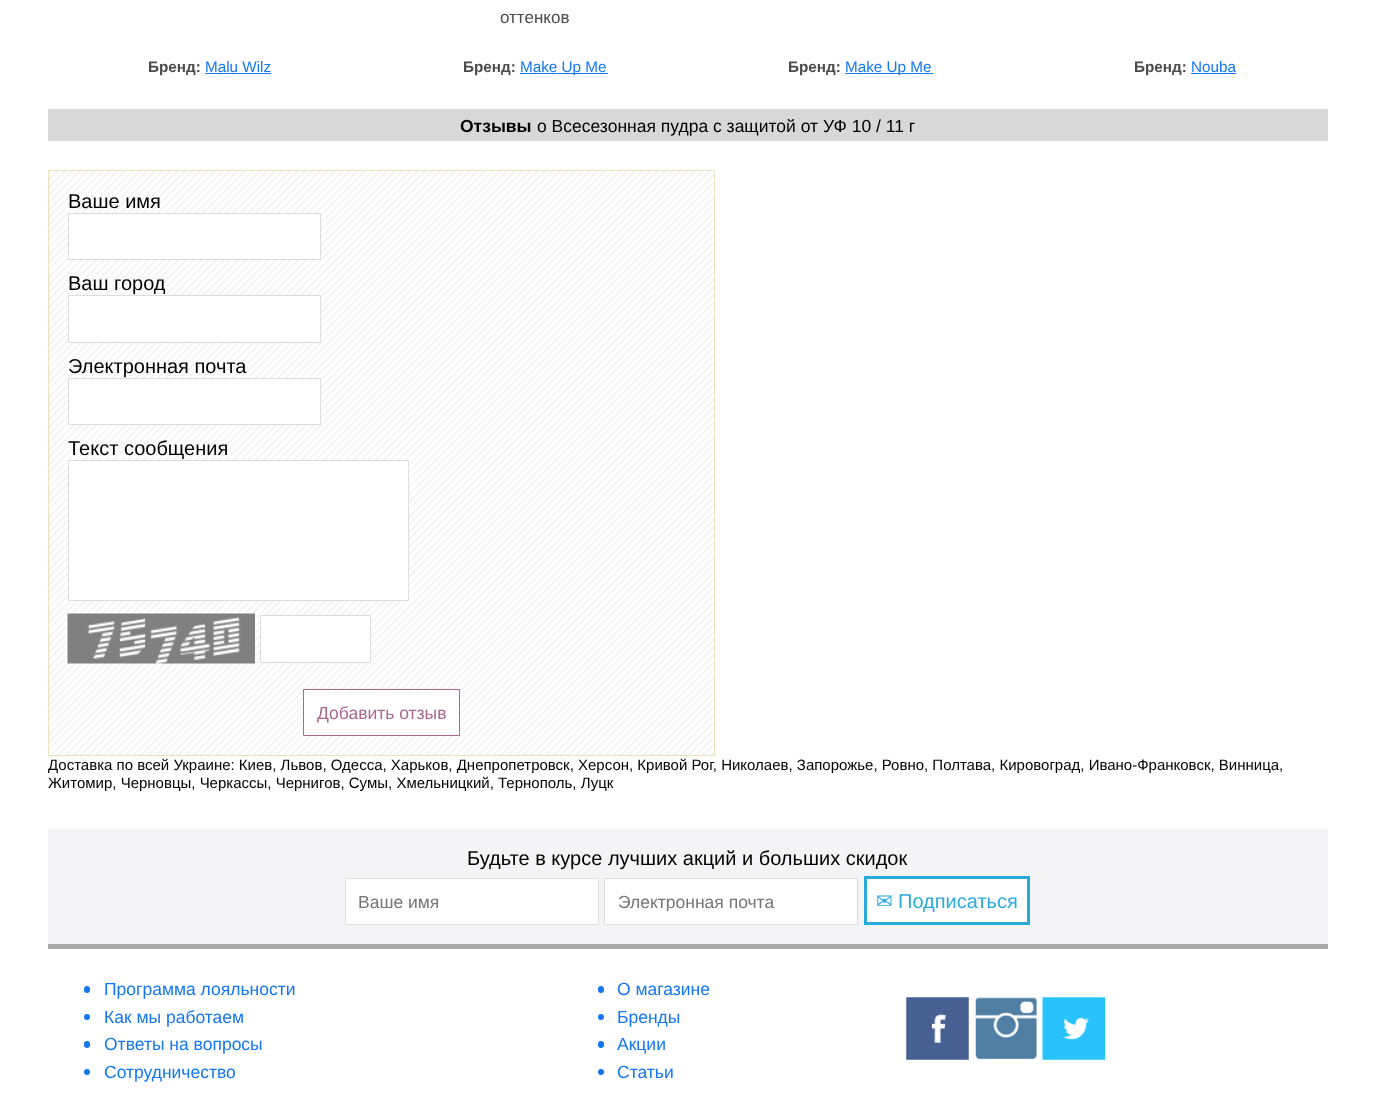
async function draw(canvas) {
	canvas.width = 1375;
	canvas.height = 1111;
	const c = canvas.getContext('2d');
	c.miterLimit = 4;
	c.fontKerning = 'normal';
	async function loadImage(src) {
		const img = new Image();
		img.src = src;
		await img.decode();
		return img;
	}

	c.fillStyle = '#fff';
	c.fillRect(0, 0, 1375, 1111);
	c.font = 'bold 15.25px Liberation Sans';
	c.fillStyle = '#4c4c4c';
	c.fillText('Бренд:', 148, 72);
	c.font = '15.25px Liberation Sans';
	c.fillStyle = '#1377f1';
	c.fillText('Malu Wilz', 205, 72);
	c.fillRect(205, 73, 66, 1);
	c.font = '17px Liberation Sans';
	c.fillStyle = '#4c4c4c';
	c.fillText('оттенков', 500, 23);
	c.font = 'bold 15.25px Liberation Sans';
	c.fillText('Бренд:', 463, 72);
	c.fillStyle = '#1377f1';
	c.fillRect(520, 73, 88, 1);
	c.font = '15.25px Liberation Sans';
	c.fillText('Make Up Me', 520, 72);
	c.font = 'bold 15.25px Liberation Sans';
	c.fillStyle = '#4c4c4c';
	c.fillText('Бренд:', 788, 72);
	c.fillStyle = '#1377f1';
	c.fillRect(845, 73, 88, 1);
	c.font = '15.25px Liberation Sans';
	c.fillText('Make Up Me', 845, 72);
	c.font = 'bold 15.25px Liberation Sans';
	c.fillStyle = '#4c4c4c';
	c.fillText('Бренд:', 1134, 72);
	c.font = '15.25px Liberation Sans';
	c.fillStyle = '#1377f1';
	c.fillText('Nouba', 1191, 72);
	c.fillRect(1191, 73, 45, 1);
	c.fillStyle = '#d8d8d8';
	c.fillRect(48, 109, 1280, 32);
	c.font = 'bold 17.5px Liberation Sans';
	c.fillStyle = '#000';
	c.fillText('Отзывы', 460, 132);
	c.font = '17.5px Liberation Sans';
	c.fillText('о Всесезонная пудра с защитой от УФ 10 / 11 г', 537, 132);
	c.drawImage(await loadImage('img1.png'), 47, 169, 667, 586);
	c.strokeStyle = '#e6e3bd';
	c.strokeRect(48.5, 170.5, 666, 585);
	c.font = '20px Liberation Sans';
	c.fillText('Ваше имя', 68, 208);
	c.fillStyle = '#fff';
	c.beginPath();
	c.rect(68.5, 213.5, 252, 46);
	c.fill();
	c.strokeStyle = '#dcdcdc';
	c.stroke();
	c.fillStyle = '#000';
	c.fillText('Ваш город', 68, 290);
	c.fillStyle = '#fff';
	c.beginPath();
	c.rect(68.5, 295.5, 252, 47);
	c.fill();
	c.stroke();
	c.fillStyle = '#000';
	c.fillText('Электронная почта', 68, 373);
	c.fillStyle = '#fff';
	c.beginPath();
	c.rect(68.5, 378.5, 252, 46);
	c.fill();
	c.stroke();
	c.fillStyle = '#000';
	c.fillText('Текст сообщения', 68, 455);
	c.fillStyle = '#fff';
	c.beginPath();
	c.rect(68.5, 460.5, 340, 140);
	c.fill();
	c.stroke();
	c.drawImage(await loadImage('img2.png'), 67, 613, 188, 51);
	c.beginPath();
	c.rect(260.5, 615.5, 110, 47);
	c.fill();
	c.stroke();
	c.beginPath();
	c.rect(303.5, 689.5, 156, 46);
	c.fill();
	c.strokeStyle = '#ab6791';
	c.stroke();
	c.font = '17.5px Liberation Sans';
	c.fillStyle = '#ab6791';
	c.fillText('Добавить отзыв', 317, 719);
	c.font = '15px Liberation Sans';
	c.fillStyle = '#000';
	c.fillText('Доставка по всей Украине: Киев, Львов, Одесса, Харьков, Днепропетровск, Херсон, Кривой Рог, Николаев, Запорожье, Ровно, Полтава, Кировоград, Ивано-Франковск, Винница,', 48, 770);
	c.fillText('Житомир, Черновцы, Черкассы, Чернигов, Сумы, Хмельницкий, Тернополь, Луцк', 48, 788);
	c.fillStyle = '#f4f3f5';
	c.fillRect(48, 829, 1280, 115);
	c.font = '20px Liberation Sans';
	c.fillStyle = '#000';
	c.fillText('Будьте в курсе лучших акций и больших скидок', 467, 865);
	c.fillStyle = '#fff';
	c.beginPath();
	c.rect(345.5, 878.5, 253, 46);
	c.fill();
	c.strokeStyle = '#dcdcdc';
	c.stroke();
	c.font = '17.5px Liberation Sans';
	c.fillStyle = '#757575';
	c.fillText('Ваше имя', 358, 908);
	c.fillStyle = '#fff';
	c.beginPath();
	c.rect(604.5, 878.5, 253, 46);
	c.fill();
	c.stroke();
	c.save();
	c.beginPath();
	c.rect(618, 891, 226, 20);
	c.clip();
	c.fillStyle = '#757575';
	c.fillText('Электронная почта', 618, 908);
	c.restore();
	c.beginPath();
	c.rect(865.5, 877.5, 163, 46);
	c.fill();
	c.strokeStyle = '#28aadc';
	c.lineWidth = 3;
	c.stroke();
	c.font = '20px DejaVu Sans';
	c.fillStyle = '#28aadc';
	c.fillText('✉', 876, 908);
	c.font = '20px Liberation Sans';
	c.fillText('Подписаться', 898, 908);
	c.fillStyle = '#aaa';
	c.fillRect(48, 944, 1280, 5);
	c.fillStyle = '#1377f1';
	c.beginPath();
	c.roundRect(84, 986, 6, 7, 3);
	c.fill();
	c.font = '17.5px Liberation Sans';
	c.fillText('Программа лояльности', 104, 995);
	c.beginPath();
	c.arc(87, 1017, 3, 0, 2 * Math.PI);
	c.fill();
	c.fillText('Как мы работаем', 104, 1023);
	c.beginPath();
	c.roundRect(84, 1041, 6, 7, 3);
	c.fill();
	c.fillText('Ответы на вопросы', 104, 1050);
	c.beginPath();
	c.arc(87, 1072, 3, 0, 2 * Math.PI);
	c.fill();
	c.fillText('Сотрудничество', 104, 1078);
	c.beginPath();
	c.roundRect(598, 986, 6, 7, 3);
	c.fill();
	c.fillText('О магазине', 617, 995);
	c.beginPath();
	c.arc(601, 1017, 3, 0, 2 * Math.PI);
	c.fill();
	c.fillText('Бренды', 617, 1023);
	c.beginPath();
	c.roundRect(598, 1041, 6, 7, 3);
	c.fill();
	c.fillText('Акции', 617, 1050);
	c.beginPath();
	c.arc(601, 1072, 3, 0, 2 * Math.PI);
	c.fill();
	c.fillText('Статьи', 617, 1078);
	c.drawImage(await loadImage('img3.png'), 906, 997, 63, 63);
	c.drawImage(await loadImage('img4.png'), 975, 997, 63, 63);
	c.drawImage(await loadImage('img5.png'), 1042, 997, 63, 63);
}

draw(document.querySelector('canvas'));
